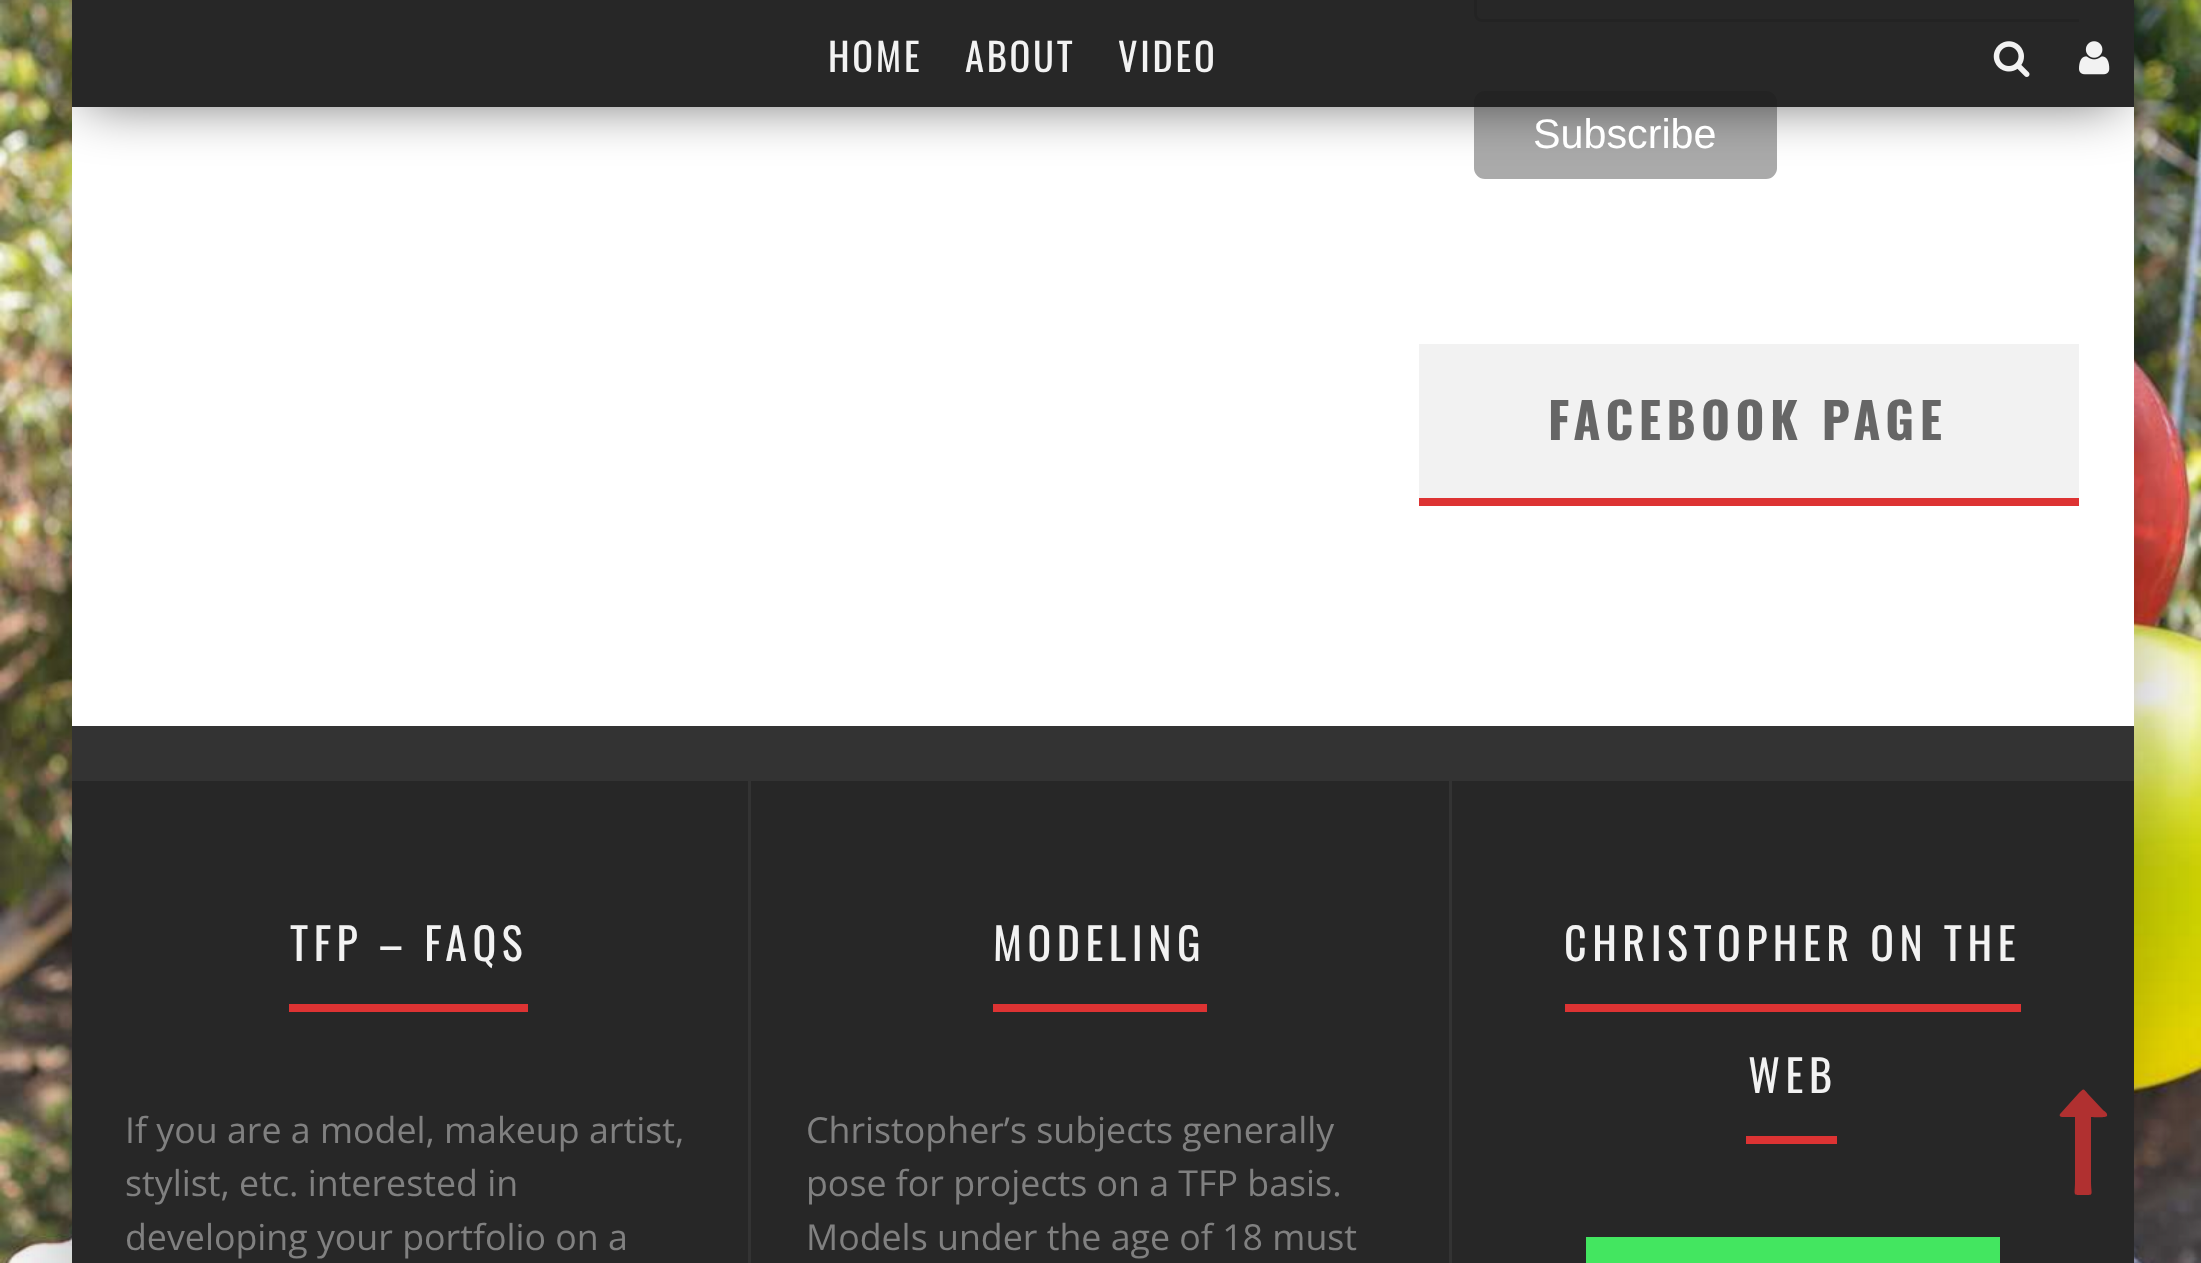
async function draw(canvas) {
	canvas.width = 2201;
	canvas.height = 1263;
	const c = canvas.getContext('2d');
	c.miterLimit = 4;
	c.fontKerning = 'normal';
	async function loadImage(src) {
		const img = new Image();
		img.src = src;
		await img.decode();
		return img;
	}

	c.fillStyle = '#fff';
	c.fillRect(0, 0, 2201, 1263);
	c.drawImage(await loadImage('img1.png'), 0, 0, 2201, 1263);
	c.fillStyle = '#00000026';
	c.filter = 'blur(41px)';
	c.beginPath();
	c.rect(44, -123, 2063, 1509);
	c.fill();
	c.filter = 'none';
	c.filter = 'blur(41px)';
	c.beginPath();
	c.rect(99, -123, 2063, 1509);
	c.fill();
	c.filter = 'none';
	c.fillStyle = '#fff';
	c.fillRect(72, 0, 2062, 726);
	c.save();
	c.beginPath();
	c.rect(1419, 0, 660, 261);
	c.clip();
	c.beginPath();
	c.roundRect(1475.5, -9.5, 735, 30, 6.5);
	c.strokeStyle = '#abb0b2';
	c.lineWidth = 3;
	c.stroke();
	c.restore();
	c.fillStyle = '#aaa';
	c.beginPath();
	c.roundRect(1474, 91, 303, 88, 11);
	c.fill();
	c.save();
	c.beginPath();
	c.moveTo(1, 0);
	c.lineTo(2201, 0);
	c.lineTo(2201, 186);
	c.lineTo(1, 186);
	c.closePath();
	c.moveTo(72, 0);
	c.lineTo(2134, 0);
	c.lineTo(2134, 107);
	c.lineTo(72, 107);
	c.closePath();
	c.clip('evenodd');
	c.fillStyle = '#00000099';
	c.filter = 'blur(27.5px)';
	c.beginPath();
	c.rect(85, 22, 2035, 80);
	c.fill();
	c.filter = 'none';
	c.restore();
	c.fillStyle = '#1b1b1bf2';
	c.fillRect(72, 0, 2062, 107);
	c.letterSpacing = '2.75px';
	c.font = '38.5px Oswald';
	c.fillStyle = '#f2f2f2';
	for (const [text, x, y] of [
		['HOME', 828, 72],
		['ABOUT', 965, 72],
		['VIDEO', 1118, 72],
	]) {
		c.fillText(text, x, y);
	}
	c.drawImage(await loadImage('img2.png'), 1993, 41, 37, 36);
	c.drawImage(await loadImage('img3.png'), 2079, 41, 31, 34);
	c.fillStyle = '#272727';
	c.fillRect(72, 781, 2062, 482);
	c.fillStyle = '#b03030';
	c.beginPath();
	c.moveTo(2107, 1116);
	c.bezierCurveTo(2106, 1118, 2094, 1117, 2091, 1117);
	c.lineTo(2091, 1181);
	c.bezierCurveTo(2091, 1196, 2095, 1195, 2083, 1195);
	c.bezierCurveTo(2072, 1195, 2075, 1196, 2075, 1181);
	c.lineTo(2075, 1117);
	c.lineTo(2066, 1117);
	c.bezierCurveTo(2065, 1117, 2058, 1118, 2060, 1114);
	c.lineTo(2078, 1094);
	c.bezierCurveTo(2084, 1088, 2083, 1088, 2088, 1094);
	c.lineTo(2103, 1110);
	c.bezierCurveTo(2104, 1111, 2108, 1113, 2107, 1116);
	c.closePath();
	c.fill();
	c.letterSpacing = '0px';
	c.font = '41.25px Liberation Sans';
	c.fillStyle = '#fff';
	c.fillText('Subscribe', 1533, 148);
	c.fillStyle = '#f2f2f2';
	c.fillRect(1419, 344, 660, 154);
	c.fillStyle = '#d33';
	c.fillRect(1419, 498, 660, 8);
	c.letterSpacing = '5.5px';
	c.font = 'bold 49.5px Oswald';
	c.fillStyle = '#666';
	c.fillText('FACEBOOK PAGE', 1548, 440);
	c.fillStyle = '#333';
	c.fillRect(72, 726, 2062, 55);
	c.fillRect(748, 781, 3, 482);
	c.font = '44px Oswald';
	c.fillStyle = '#f2f2f2';
	c.fillText('TFP – FAQS', 290, 961);
	c.fillStyle = '#d33';
	c.fillRect(289, 1004, 239, 8);
	c.letterSpacing = '0px';
	c.font = '35.75px Open Sans';
	c.fillStyle = '#808080';
	for (const [text, x, y] of [
		['If you are a model, makeup artist,', 125, 1143],
		['stylist, etc. interested in', 125, 1196],
		['developing your portfolio on a', 125, 1250],
	]) {
		c.fillText(text, x, y);
	}
	c.fillStyle = '#333';
	c.fillRect(1449, 781, 3, 482);
	c.letterSpacing = '5.5px';
	c.font = '44px Oswald';
	c.fillStyle = '#f2f2f2';
	c.fillText('MODELING', 993, 961);
	c.fillStyle = '#d33';
	c.fillRect(993, 1004, 214, 8);
	c.letterSpacing = '0px';
	c.font = '35.75px Open Sans';
	c.fillStyle = '#808080';
	for (const [text, x, y] of [
		['Christopher’s subjects generally', 806, 1143],
		['pose for projects on a TFP basis.', 806, 1196],
		['Models under the age of 18 must', 806, 1250],
	]) {
		c.fillText(text, x, y);
	}
	c.letterSpacing = '5.5px';
	c.font = '44px Oswald';
	c.fillStyle = '#f2f2f2';
	c.fillText('CHRISTOPHER ON THE', 1564, 961);
	c.fillStyle = '#d33';
	c.fillRect(1565, 1004, 456, 8);
	c.fillStyle = '#f2f2f2';
	c.fillText('WEB', 1748, 1093);
	c.fillStyle = '#d33';
	c.fillRect(1746, 1136, 91, 8);
	c.fillStyle = '#43e660';
	c.fillRect(1586, 1237, 414, 26);
}

draw(document.querySelector('canvas'));
